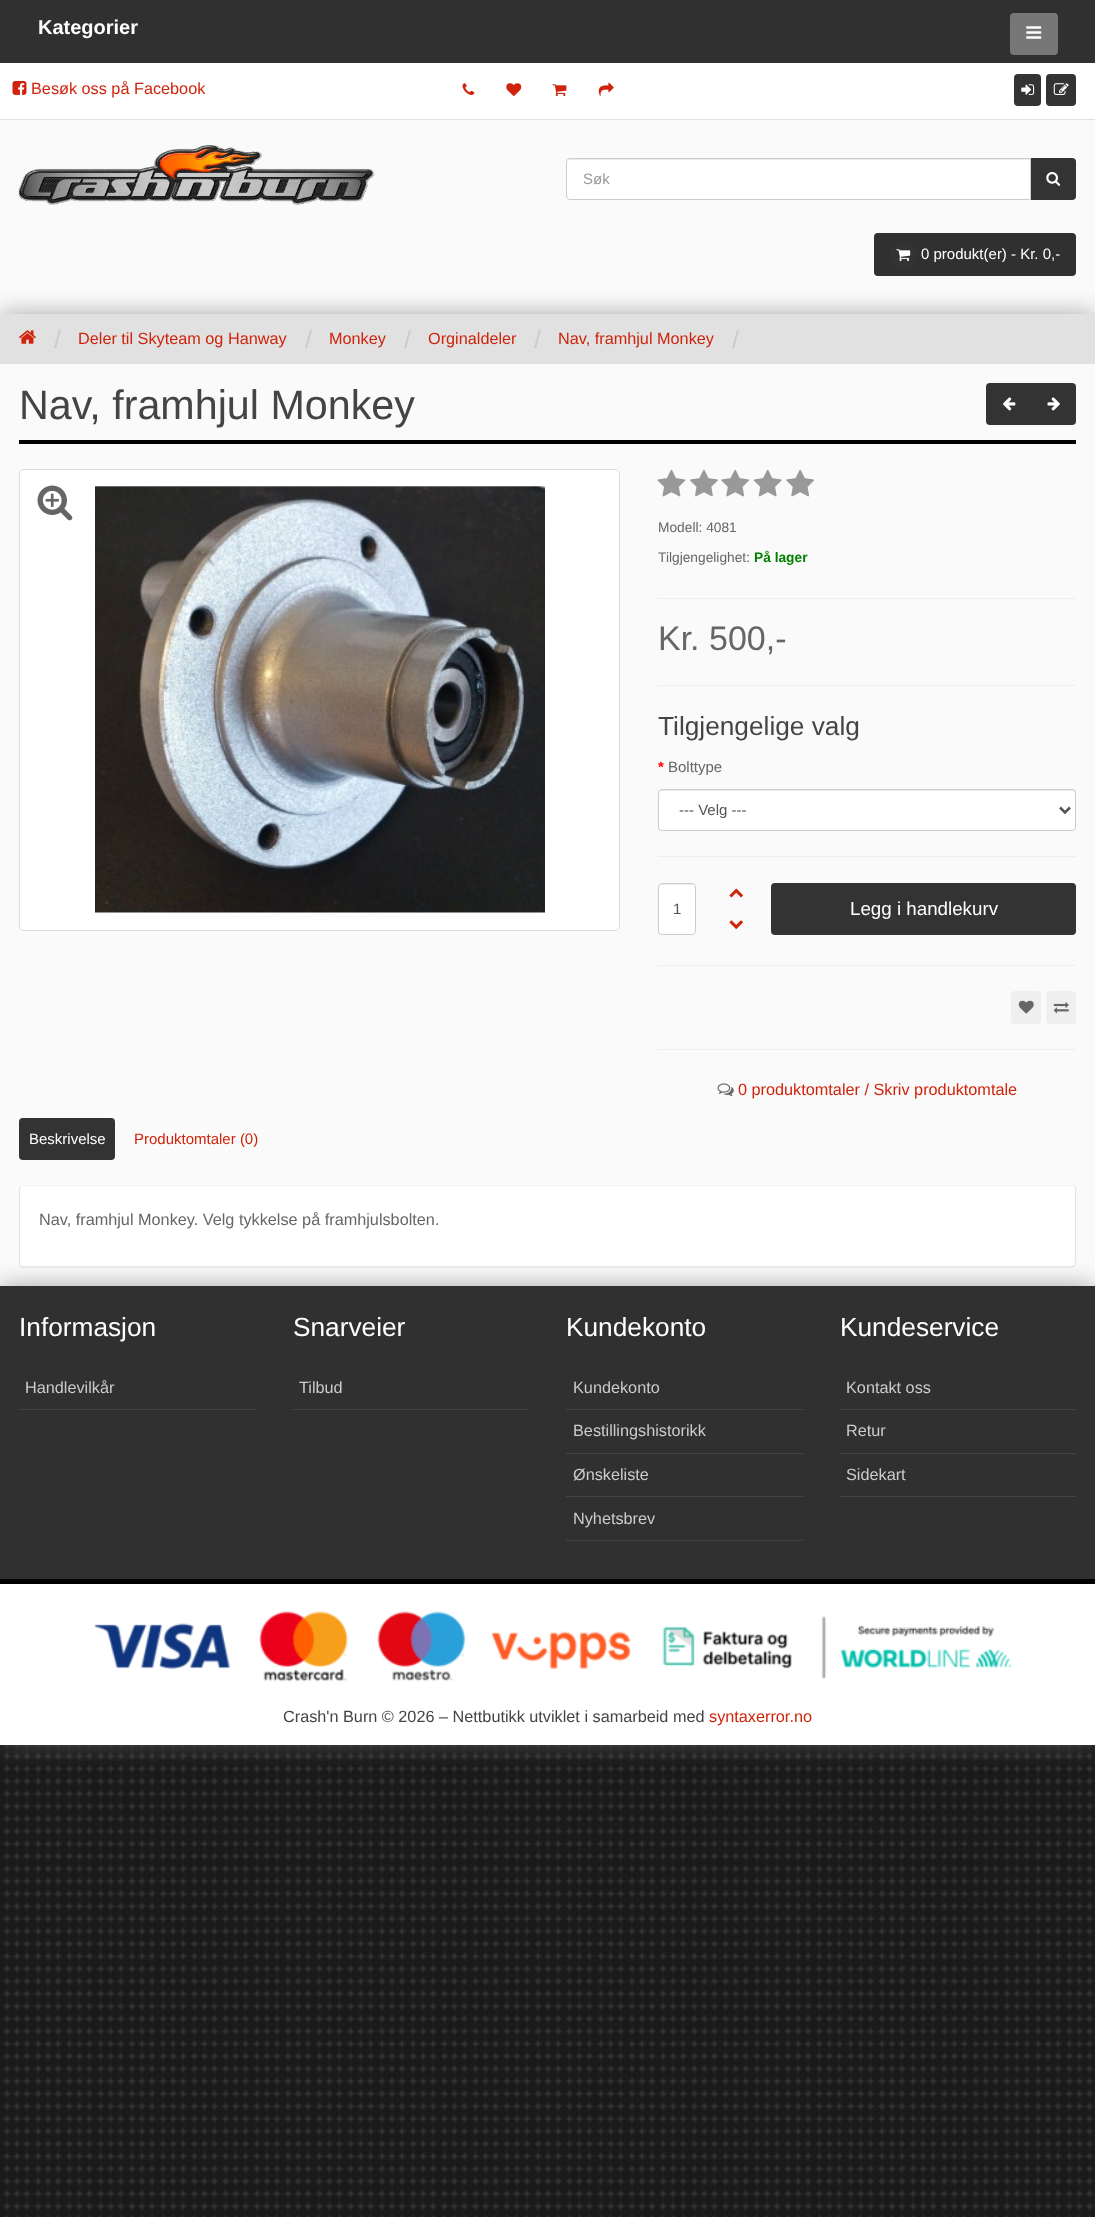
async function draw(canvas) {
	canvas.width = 1095;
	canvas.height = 2217;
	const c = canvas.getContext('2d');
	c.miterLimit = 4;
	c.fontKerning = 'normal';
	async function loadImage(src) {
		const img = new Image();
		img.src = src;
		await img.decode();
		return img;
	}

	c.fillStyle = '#fff';
	c.fillRect(0, 0, 1095, 2217);
	c.drawImage(await loadImage('img1.png'), 0, 1745, 1095, 472);
	c.fillStyle = '#fafafa';
	c.fillRect(0, 120, 1095, 194);
	c.fillStyle = '#303030';
	c.fillRect(0, 0, 1095, 63);
	c.font = 'bold 20px Liberation Sans';
	c.fillStyle = '#fff';
	c.fillText('Kategorier', 38, 34);
	c.fillStyle = '#777';
	c.beginPath();
	c.roundRect(1010, 13, 48, 42, 4);
	c.fill();
	c.drawImage(await loadImage('img2.png'), 1026, 26, 16, 13);
	c.fillStyle = '#e1e1e1';
	c.fillRect(0, 119, 1095, 1);
	c.drawImage(await loadImage('img3.png'), 12, 81, 15, 14);
	c.font = '16.25px Liberation Sans';
	c.fillStyle = '#cf230b';
	c.fillText('Besøk oss på Facebook', 31, 94);
	c.drawImage(await loadImage('img4.png'), 462, 83, 13, 12);
	c.drawImage(await loadImage('img5.png'), 506, 83, 16, 13);
	c.drawImage(await loadImage('img6.png'), 552, 84, 15, 13);
	c.drawImage(await loadImage('img7.png'), 598, 82, 16, 14);
	c.fillStyle = '#333';
	c.beginPath();
	c.roundRect(1014, 74, 27, 32, 4);
	c.fill();
	c.drawImage(await loadImage('img8.png'), 1021, 84, 14, 11);
	c.beginPath();
	c.roundRect(1046, 74, 30, 32, 4);
	c.fill();
	c.drawImage(await loadImage('img9.png'), 1053, 83, 16, 12);
	c.drawImage(await loadImage('img10.png'), 18, 145, 357, 60);
	c.beginPath();
	c.roundRect(1030, 158, 46, 42, [0, 4, 4, 0]);
	c.fill();
	c.fillStyle = '#fff';
	c.beginPath();
	c.roundRect(566, 158, 465, 42, [4, 0, 0, 4]);
	c.fill();
	c.fillStyle = '#ececec';
	c.beginPath();
	c.moveTo(570, 160);
	c.lineTo(1030, 160);
	c.lineTo(1030, 159);
	c.lineTo(570, 159);
	c.bezierCurveTo(569, 159, 568, 160, 568, 161);
	c.closePath();
	c.fill();
	c.beginPath();
	c.roundRect(566.5, 158.5, 464, 41, [3.5, 0, 0, 3.5]);
	c.strokeStyle = '#ccc';
	c.stroke();
	c.font = '15px Liberation Sans';
	c.fillStyle = '#999';
	c.fillText('Søk', 583, 184);
	c.drawImage(await loadImage('img11.png'), 1046, 172, 15, 14);
	c.fillStyle = '#6e6d6d96';
	c.filter = 'blur(12.5px)';
	c.beginPath();
	c.rect(0, 314, 1095, 972);
	c.fill();
	c.filter = 'none';
	c.fillStyle = '#303030';
	c.beginPath();
	c.roundRect(874, 233, 202, 43, 4);
	c.fill();
	c.fillStyle = '#333';
	c.beginPath();
	c.roundRect(890, 241, 26, 28, 13);
	c.fill();
	c.drawImage(await loadImage('img12.png'), 896, 249, 15, 13);
	c.fillStyle = '#fff';
	c.fillText('0 produkt(er) - Kr. 0,-', 921, 259);
	c.fillStyle = '#fafafa';
	c.fillRect(0, 364, 1095, 922);
	c.fillStyle = '#e1e1e1';
	c.fillRect(0, 314, 1095, 50);
	c.drawImage(await loadImage('img13.png'), 19, 330, 17, 14);
	c.font = '25px Liberation Sans';
	c.fillStyle = '#ccc';
	c.fillText('/', 54, 348);
	c.font = '16.25px Liberation Sans';
	c.fillStyle = '#cf230b';
	c.fillText('Deler til Skyteam og Hanway', 78, 344);
	c.font = '25px Liberation Sans';
	c.fillStyle = '#ccc';
	c.fillText('/', 305, 348);
	c.font = '16.25px Liberation Sans';
	c.fillStyle = '#cf230b';
	c.fillText('Monkey', 329, 344);
	c.font = '25px Liberation Sans';
	c.fillStyle = '#ccc';
	c.fillText('/', 404, 348);
	c.font = '16.25px Liberation Sans';
	c.fillStyle = '#cf230b';
	c.fillText('Orginaldeler', 428, 344);
	c.font = '25px Liberation Sans';
	c.fillStyle = '#ccc';
	c.fillText('/', 534, 348);
	c.font = '16.25px Liberation Sans';
	c.fillStyle = '#cf230b';
	c.fillText('Nav, framhjul Monkey', 558, 344);
	c.font = '25px Liberation Sans';
	c.fillStyle = '#ccc';
	c.fillText('/', 732, 348);
	c.fillStyle = '#000';
	c.fillRect(19, 440, 1057, 4);
	c.font = '41.25px Liberation Sans';
	c.fillStyle = '#444';
	c.fillText('Nav, framhjul Monkey', 19, 419);
	c.fillStyle = '#333';
	c.beginPath();
	c.roundRect(986, 383, 47, 42, [4, 0, 0, 4]);
	c.fill();
	c.drawImage(await loadImage('img14.png'), 1003, 397, 13, 14);
	c.beginPath();
	c.roundRect(1031, 383, 45, 42, [0, 4, 4, 0]);
	c.fill();
	c.drawImage(await loadImage('img15.png'), 1047, 397, 13, 14);
	c.fillStyle = '#fff';
	c.beginPath();
	c.roundRect(19.5, 469.5, 600, 461, 4.5);
	c.fill();
	c.strokeStyle = '#ddd';
	c.stroke();
	c.drawImage(await loadImage('img16.png'), 95, 485, 450, 430);
	c.drawImage(await loadImage('img17.png'), 37, 485, 36, 36);
	c.drawImage(await loadImage('img18.png'), 657, 469, 29, 28);
	c.drawImage(await loadImage('img19.png'), 690, 469, 28, 28);
	c.drawImage(await loadImage('img20.png'), 721, 469, 28, 28);
	c.drawImage(await loadImage('img21.png'), 753, 469, 29, 28);
	c.drawImage(await loadImage('img20.png'), 786, 469, 28, 28);
	c.font = '13.75px Liberation Sans';
	c.fillStyle = '#666';
	c.fillText('Modell: 4081', 658, 532);
	c.fillText('Tilgjengelighet:', 658, 562);
	c.font = 'bold 13.75px Liberation Sans';
	c.fillStyle = '#008000';
	c.fillText('På lager', 754, 562);
	c.fillStyle = '#eee';
	c.fillRect(658, 598, 418, 1);
	c.font = '34px Liberation Sans';
	c.fillStyle = '#666';
	c.fillText('Kr. 500,-', 658, 650);
	c.fillStyle = '#eee';
	c.fillRect(658, 685, 418, 1);
	c.font = '26.25px Liberation Sans';
	c.fillStyle = '#444';
	c.fillText('Tilgjengelige valg', 658, 735);
	c.font = 'bold 15px Liberation Sans';
	c.fillStyle = '#f00';
	c.fillText('*', 658, 772);
	c.font = '15px Liberation Sans';
	c.fillStyle = '#666';
	c.fillText('Bolttype', 668, 772);
	c.fillStyle = '#fff';
	c.beginPath();
	c.roundRect(658, 789, 418, 42, 4);
	c.fill();
	c.fillStyle = '#ececec';
	c.beginPath();
	c.moveTo(661, 791);
	c.lineTo(1072, 791);
	c.bezierCurveTo(1074, 791, 1075, 792, 1075, 794);
	c.bezierCurveTo(1075, 792, 1075, 790, 1072, 790);
	c.lineTo(662, 790);
	c.lineTo(659, 791);
	c.lineTo(659, 794);
	c.bezierCurveTo(659, 792, 660, 791, 661, 791);
	c.closePath();
	c.fill();
	c.beginPath();
	c.roundRect(658.5, 789.5, 417, 41, 3.5);
	c.strokeStyle = '#ccc';
	c.stroke();
	c.beginPath();
	c.moveTo(1060, 807.5);
	c.lineTo(1065, 812.5);
	c.lineTo(1070, 807.5);
	c.strokeStyle = '#555';
	c.lineWidth = 2.5;
	c.stroke();
	c.fillStyle = '#555';
	c.fillText('--- Velg ---', 679, 815);
	c.fillStyle = '#eee';
	c.fillRect(658, 856, 418, 1);
	c.fillStyle = '#fff';
	c.beginPath();
	c.roundRect(658, 883, 38, 52, 4);
	c.fill();
	c.fillStyle = '#ececec';
	c.beginPath();
	c.moveTo(661, 885);
	c.lineTo(692, 885);
	c.bezierCurveTo(694, 885, 695, 886, 695, 888);
	c.bezierCurveTo(695, 883, 692, 884, 687.5, 884);
	c.lineTo(666.5, 884);
	c.bezierCurveTo(662, 884, 659, 883, 659, 888);
	c.bezierCurveTo(659, 886, 660, 885, 661, 885);
	c.closePath();
	c.fill();
	c.beginPath();
	c.roundRect(658.5, 883.5, 37, 51, 3.5);
	c.strokeStyle = '#ccc';
	c.lineWidth = 1;
	c.stroke();
	c.fillStyle = '#555';
	c.fillText('1', 673, 914);
	c.drawImage(await loadImage('img22.png'), 729, 888, 14, 10);
	c.drawImage(await loadImage('img23.png'), 729, 920, 14, 9);
	c.fillStyle = '#333';
	c.beginPath();
	c.roundRect(771, 883, 305, 52, 4);
	c.fill();
	c.font = '18.75px Liberation Sans';
	c.fillStyle = '#fff';
	c.fillText('Legg i handlekurv', 850, 915);
	c.fillStyle = '#eee';
	c.fillRect(658, 965, 418, 1);
	c.fillStyle = '#efefef';
	c.beginPath();
	c.roundRect(1011, 991, 30, 33, 4);
	c.fill();
	c.drawImage(await loadImage('img24.png'), 1018, 1000, 16, 14);
	c.beginPath();
	c.roundRect(1046, 991, 30, 33, 4);
	c.fill();
	c.drawImage(await loadImage('img25.png'), 1053, 1002, 16, 12);
	c.fillStyle = '#eee';
	c.fillRect(658, 1049, 418, 1);
	c.drawImage(await loadImage('img26.png'), 717, 1083, 17, 14);
	c.font = '16.25px Liberation Sans';
	c.fillStyle = '#cf230b';
	c.fillText('0 produktomtaler / Skriv produktomtale', 738, 1095);
	c.fillStyle = '#333';
	c.beginPath();
	c.roundRect(19, 1118, 96, 42, 4);
	c.fill();
	c.font = '15px Liberation Sans';
	c.fillStyle = '#fff';
	c.fillText('Beskrivelse', 29, 1144);
	c.fillStyle = '#cf230b';
	c.fillText('Produktomtaler (0)', 134, 1144);
	c.fillStyle = '#6e6d6d96';
	c.filter = 'blur(12.5px)';
	c.beginPath();
	c.rect(0, 1286, 1095, 459);
	c.fill();
	c.filter = 'none';
	c.fillStyle = '#fff';
	c.beginPath();
	c.roundRect(19, 1185, 1057, 83, 4);
	c.fill();
	c.beginPath();
	c.moveTo(20.5, 1186.5);
	c.lineTo(22.5, 1185.5);
	c.lineTo(1072.5, 1185.5);
	c.lineTo(1074.5, 1186.5);
	c.strokeStyle = '#f1f1f1';
	c.lineWidth = 1.2;
	c.stroke();
	c.beginPath();
	c.moveTo(1074.5, 1186.5);
	c.lineTo(1075.5, 1188.5);
	c.lineTo(1075.5, 1264);
	c.lineTo(1074.5, 1266);
	c.strokeStyle = '#e7e6e6';
	c.stroke();
	c.beginPath();
	c.moveTo(1074.5, 1266);
	c.lineTo(1072.5, 1267);
	c.lineTo(22.5, 1267);
	c.lineTo(20.5, 1266);
	c.strokeStyle = '#cfcfcf';
	c.stroke();
	c.beginPath();
	c.moveTo(20.5, 1266);
	c.lineTo(19.5, 1264);
	c.lineTo(19.5, 1188.5);
	c.lineTo(20.5, 1186.5);
	c.strokeStyle = '#e7e6e6';
	c.stroke();
	c.font = '16.25px Liberation Sans';
	c.fillStyle = '#666';
	c.fillText('Nav, framhjul Monkey. Velg tykkelse på framhjulsbolten.', 39, 1225);
	c.fillStyle = '#303030';
	c.fillRect(0, 1286, 1095, 293);
	c.font = '26.25px Liberation Sans';
	c.fillStyle = '#fff';
	c.fillText('Informasjon', 19, 1336);
	c.fillStyle = '#444';
	c.fillRect(19, 1409, 236, 1);
	c.font = '16.25px Liberation Sans';
	c.fillStyle = '#ccc';
	c.fillText('Handlevilkår', 25, 1393);
	c.font = '26.25px Liberation Sans';
	c.fillStyle = '#fff';
	c.fillText('Snarveier', 293, 1336);
	c.fillStyle = '#444';
	c.fillRect(293, 1409, 236, 1);
	c.font = '16.25px Liberation Sans';
	c.fillStyle = '#ccc';
	c.fillText('Tilbud', 299, 1393);
	c.font = '26.25px Liberation Sans';
	c.fillStyle = '#fff';
	c.fillText('Kundekonto', 566, 1336);
	c.fillStyle = '#444';
	c.fillRect(566, 1409, 237, 1);
	c.font = '16.25px Liberation Sans';
	c.fillStyle = '#ccc';
	c.fillText('Kundekonto', 573, 1393);
	c.fillStyle = '#444';
	c.fillRect(566, 1453, 237, 1);
	c.fillStyle = '#ccc';
	c.fillText('Bestillingshistorikk', 573, 1436);
	c.fillStyle = '#444';
	c.fillRect(566, 1496, 237, 1);
	c.fillStyle = '#ccc';
	c.fillText('Ønskeliste', 573, 1480);
	c.fillStyle = '#444';
	c.fillRect(566, 1540, 237, 1);
	c.fillStyle = '#ccc';
	c.fillText('Nyhetsbrev', 573, 1524);
	c.font = '26.25px Liberation Sans';
	c.fillStyle = '#fff';
	c.fillText('Kundeservice', 840, 1336);
	c.fillStyle = '#444';
	c.fillRect(840, 1409, 236, 1);
	c.font = '16.25px Liberation Sans';
	c.fillStyle = '#ccc';
	c.fillText('Kontakt oss', 846, 1393);
	c.fillStyle = '#444';
	c.fillRect(840, 1453, 236, 1);
	c.fillStyle = '#ccc';
	c.fillText('Retur', 846, 1436);
	c.fillStyle = '#444';
	c.fillRect(840, 1496, 236, 1);
	c.fillStyle = '#ccc';
	c.fillText('Sidekart', 846, 1480);
	c.fillStyle = '#fff';
	c.fillRect(0, 1584, 1095, 161);
	c.fillStyle = '#000';
	c.fillRect(0, 1579, 1095, 5);
	c.drawImage(await loadImage('img27.png'), 94, 1611, 918, 71);
	c.fillStyle = '#444';
	c.fillText('Crash\'n Burn © 2026 – Nettbutikk utviklet i samarbeid med', 283, 1722);
	c.fillStyle = '#cf230b';
	c.fillText('syntaxerror.no', 709, 1722);
}

draw(document.querySelector('canvas'));
